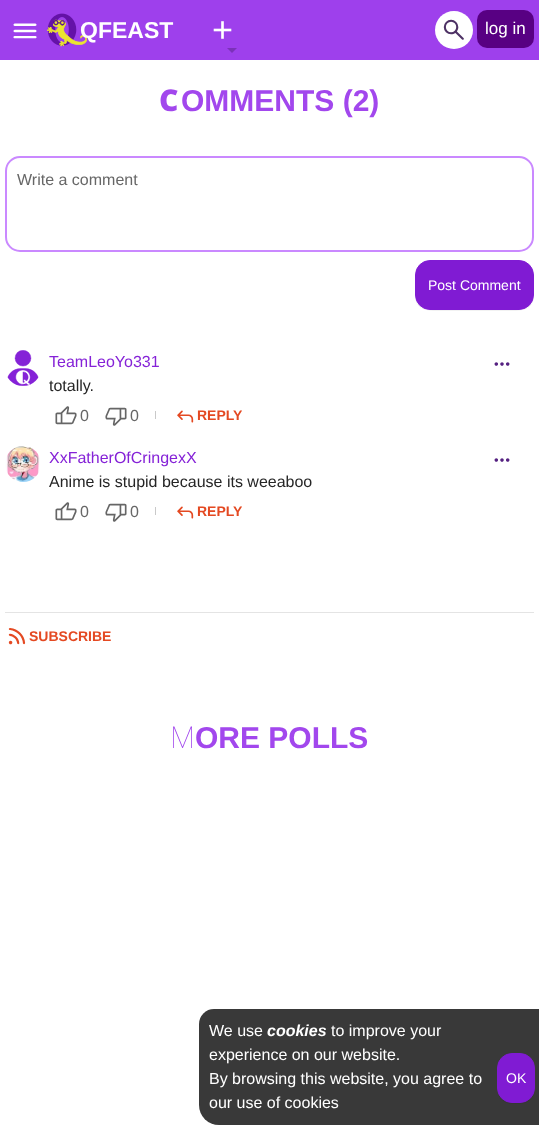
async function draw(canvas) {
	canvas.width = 539;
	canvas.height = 1126;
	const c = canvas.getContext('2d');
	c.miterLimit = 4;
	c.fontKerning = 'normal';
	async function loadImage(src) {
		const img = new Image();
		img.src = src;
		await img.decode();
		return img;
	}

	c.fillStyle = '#fff';
	c.fillRect(0, 0, 539, 1126);
	c.fillStyle = '#9e40ec';
	c.fillRect(0, 0, 539, 60);
	c.drawImage(await loadImage('img1.png'), 13, 23, 24, 16);
	c.drawImage(await loadImage('img2.png'), 47, 13, 40, 34);
	c.font = 'bold 23px Liberation Sans';
	c.fillStyle = '#fff';
	c.fillText('QFEAST', 80, 38);
	c.font = '36px Liberation Sans';
	c.fillText('+', 212, 42);
	c.fillStyle = '#7b31b9';
	c.beginPath();
	c.moveTo(227, 48);
	c.lineTo(237, 48);
	c.lineTo(232, 53);
	c.closePath();
	c.fill();
	c.fillStyle = '#fff';
	c.beginPath();
	c.arc(454, 30, 19, 0, 2 * Math.PI);
	c.fill();
	c.drawImage(await loadImage('img3.png'), 443, 19, 21, 21);
	c.fillStyle = '#580083';
	c.beginPath();
	c.roundRect(477, 10, 57, 38, 10);
	c.fill();
	c.font = '17px Liberation Sans';
	c.fillStyle = '#fff';
	c.fillText('log in', 485, 34);
	c.font = '900 30px Noto Sans';
	c.fillStyle = '#a247ed';
	c.fillText('C', 159, 111);
	c.font = 'bold 30px Liberation Sans';
	c.fillText('OMMENTS (2)', 181, 111);
	c.beginPath();
	c.roundRect(6, 157, 527, 94, 14);
	c.strokeStyle = '#ca89ff';
	c.lineWidth = 2;
	c.stroke();
	c.font = '16px Liberation Sans';
	c.fillStyle = '#676767';
	c.fillText('Write a comment', 17, 185);
	c.fillStyle = '#f2f2f2';
	c.beginPath();
	c.moveTo(415, 295);
	c.bezierCurveTo(415, 313, 432, 311, 445, 311);
	c.lineTo(504, 311);
	c.bezierCurveTo(517, 311, 534, 313, 534, 295);
	c.bezierCurveTo(534, 303, 527, 310, 519, 310);
	c.lineTo(430, 310);
	c.bezierCurveTo(422, 310, 415, 303, 415, 295);
	c.closePath();
	c.fill();
	c.fillStyle = '#801bd3';
	c.beginPath();
	c.roundRect(415.5, 260.5, 118, 49, 14.5);
	c.fill();
	c.strokeStyle = '#801bd3';
	c.lineWidth = 1;
	c.stroke();
	c.font = '14px Liberation Sans';
	c.fillStyle = '#fff';
	c.fillText('Post Comment', 428, 290);
	c.drawImage(await loadImage('img4.png'), 7, 350, 32, 36);
	c.font = '16px Liberation Sans';
	c.fillStyle = '#8522d7';
	c.fillText('TeamLeoYo331', 49, 367);
	c.fillStyle = '#262626';
	c.fillText('totally.', 49, 391);
	c.drawImage(await loadImage('img5.png'), 55, 406, 22, 19);
	c.fillStyle = '#676767';
	c.fillText('0', 80, 421);
	c.drawImage(await loadImage('img6.png'), 105, 407, 22, 19);
	c.fillText('0', 130, 421);
	c.fillStyle = '#c9c9c9';
	c.fillRect(155, 411, 1, 8);
	c.drawImage(await loadImage('img7.png'), 177, 410, 17, 13);
	c.font = 'bold 14px Liberation Sans';
	c.fillStyle = '#e44922';
	c.fillText('REPLY', 197, 420);
	c.drawImage(await loadImage('img8.png'), 494, 362, 16, 4);
	c.drawImage(await loadImage('img9.png'), 5, 446, 35, 36);
	c.font = '16px Liberation Sans';
	c.fillStyle = '#8522d7';
	c.fillText('XxFatherOfCringexX', 49, 463);
	c.fillStyle = '#262626';
	c.fillText('Anime is stupid because its weeaboo', 49, 487);
	c.drawImage(await loadImage('img5.png'), 55, 502, 22, 19);
	c.fillStyle = '#676767';
	c.fillText('0', 80, 517);
	c.drawImage(await loadImage('img6.png'), 105, 503, 22, 19);
	c.fillText('0', 130, 517);
	c.fillStyle = '#c9c9c9';
	c.fillRect(155, 507, 1, 8);
	c.drawImage(await loadImage('img7.png'), 177, 506, 17, 13);
	c.font = 'bold 14px Liberation Sans';
	c.fillStyle = '#e44922';
	c.fillText('REPLY', 197, 516);
	c.drawImage(await loadImage('img8.png'), 494, 458, 16, 4);
	c.fillStyle = '#e4e4e4';
	c.fillRect(5, 612, 529, 1);
	c.drawImage(await loadImage('img10.png'), 8, 628, 18, 17);
	c.fillStyle = '#e44922';
	c.fillText('SUBSCRIBE', 29, 641);
	c.font = '100 30px Noto Sans';
	c.fillStyle = '#a247ed';
	c.fillText('M', 170, 748);
	c.font = 'bold 30px Liberation Sans';
	c.fillText('ORE POLLS', 195, 748);
	c.fillStyle = '#393939';
	c.beginPath();
	c.roundRect(199, 1009, 340, 116, [15, 0, 0, 20]);
	c.fill();
	c.font = '16px Liberation Sans';
	c.fillStyle = '#fff';
	c.fillText('We use', 209, 1036);
	c.font = 'italic bold 16px Liberation Sans';
	c.fillText('cookies', 267, 1036);
	c.font = '16px Liberation Sans';
	for (const [text, x, y] of [
		['to improve your', 331, 1036],
		['experience on our website.', 209, 1060],
		['By browsing this website, you agree to', 209, 1084],
		['our use of cookies', 209, 1108],
	]) {
		c.fillText(text, x, y);
	}
	c.fillStyle = '#363636';
	c.beginPath();
	c.moveTo(497, 1088);
	c.bezierCurveTo(497, 1095.5, 501.5, 1102, 509, 1103.5);
	c.lineTo(516, 1104);
	c.lineTo(523, 1103.5);
	c.bezierCurveTo(530.5, 1102, 535, 1095.5, 535, 1088);
	c.bezierCurveTo(535, 1096.5, 528.5, 1103, 520, 1103);
	c.lineTo(512, 1103);
	c.bezierCurveTo(503.5, 1103, 497, 1096.5, 497, 1088);
	c.closePath();
	c.fill();
	c.fillStyle = '#801bd3';
	c.beginPath();
	c.roundRect(497.5, 1053.5, 37, 49, 14.5);
	c.fill();
	c.stroke();
	c.font = '14px Liberation Sans';
	c.fillStyle = '#fff';
	c.fillText('OK', 506, 1083);
}

draw(document.querySelector('canvas'));
